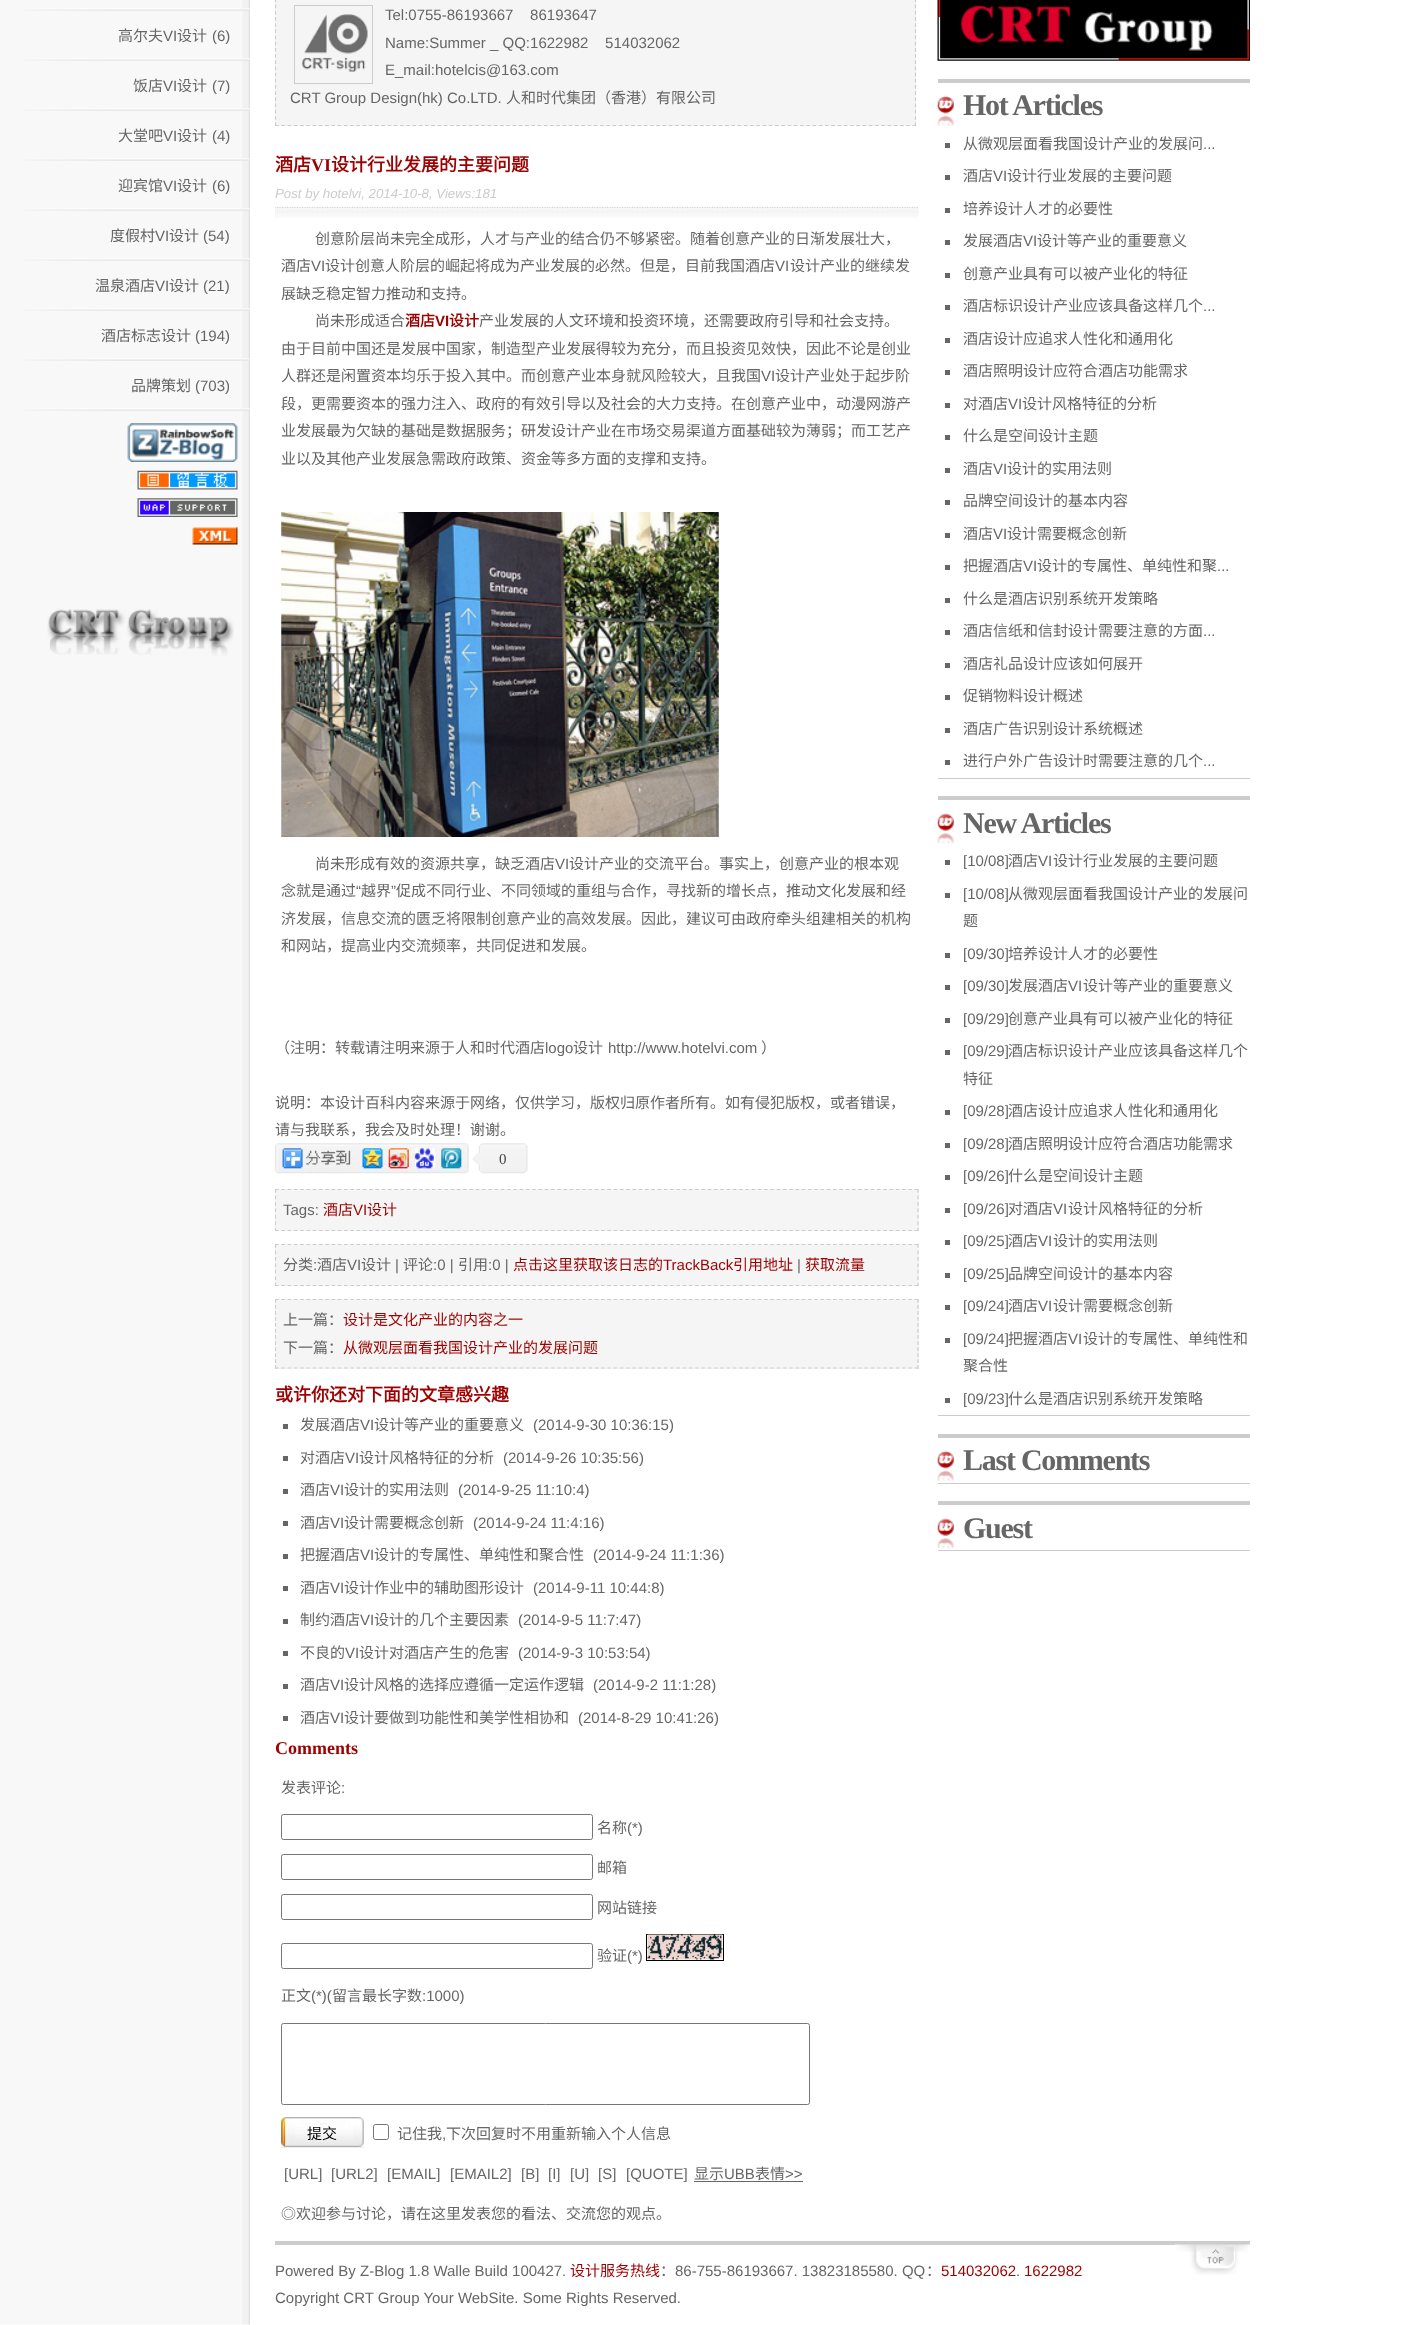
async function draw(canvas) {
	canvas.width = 1408;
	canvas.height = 2325;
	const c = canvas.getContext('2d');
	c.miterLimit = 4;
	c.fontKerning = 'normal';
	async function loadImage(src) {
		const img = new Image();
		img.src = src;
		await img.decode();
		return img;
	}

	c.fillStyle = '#fff';
	c.fillRect(0, 0, 1408, 2325);
	c.drawImage(await loadImage('img1.png'), 0, 0, 250, 2325);
	c.drawImage(await loadImage('img2.png'), 23, 8, 227, 3);
	c.drawImage(await loadImage('img2.png'), 23, 58, 227, 3);
	c.font = '15px Noto Sans CJK SC';
	c.fillStyle = '#666';
	c.fillText('高尔夫', 118, 41);
	c.font = '15px Liberation Sans';
	c.fillText('VI', 163, 41);
	c.font = '15px Noto Sans CJK SC';
	c.fillText('设计', 177, 41);
	c.font = '15px Liberation Sans';
	c.fillText('(6)', 212, 41);
	c.drawImage(await loadImage('img2.png'), 23, 108, 227, 3);
	c.font = '15px Noto Sans CJK SC';
	c.fillText('饭店', 133, 91);
	c.font = '15px Liberation Sans';
	c.fillText('VI', 163, 91);
	c.font = '15px Noto Sans CJK SC';
	c.fillText('设计', 177, 91);
	c.font = '15px Liberation Sans';
	c.fillText('(7)', 212, 91);
	c.drawImage(await loadImage('img2.png'), 23, 158, 227, 3);
	c.font = '15px Noto Sans CJK SC';
	c.fillText('大堂吧', 118, 141);
	c.font = '15px Liberation Sans';
	c.fillText('VI', 163, 141);
	c.font = '15px Noto Sans CJK SC';
	c.fillText('设计', 177, 141);
	c.font = '15px Liberation Sans';
	c.fillText('(4)', 212, 141);
	c.drawImage(await loadImage('img2.png'), 23, 208, 227, 3);
	c.font = '15px Noto Sans CJK SC';
	c.fillText('迎宾馆', 118, 191);
	c.font = '15px Liberation Sans';
	c.fillText('VI', 163, 191);
	c.font = '15px Noto Sans CJK SC';
	c.fillText('设计', 177, 191);
	c.font = '15px Liberation Sans';
	c.fillText('(6)', 212, 191);
	c.drawImage(await loadImage('img2.png'), 23, 258, 227, 3);
	c.font = '15px Noto Sans CJK SC';
	c.fillText('度假村', 110, 241);
	c.font = '15px Liberation Sans';
	c.fillText('VI', 155, 241);
	c.font = '15px Noto Sans CJK SC';
	c.fillText('设计', 169, 241);
	c.font = '15px Liberation Sans';
	c.fillText('(54)', 203, 241);
	c.drawImage(await loadImage('img2.png'), 23, 308, 227, 3);
	c.font = '15px Noto Sans CJK SC';
	c.fillText('温泉酒店', 95, 291);
	c.font = '15px Liberation Sans';
	c.fillText('VI', 155, 291);
	c.font = '15px Noto Sans CJK SC';
	c.fillText('设计', 169, 291);
	c.font = '15px Liberation Sans';
	c.fillText('(21)', 203, 291);
	c.drawImage(await loadImage('img2.png'), 23, 358, 227, 3);
	c.font = '15px Noto Sans CJK SC';
	c.fillText('酒店标志设计', 101, 341);
	c.font = '15px Liberation Sans';
	c.fillText('(194)', 195, 341);
	c.drawImage(await loadImage('img2.png'), 23, 408, 227, 3);
	c.font = '15px Noto Sans CJK SC';
	c.fillText('品牌策划', 131, 391);
	c.font = '15px Liberation Sans';
	c.fillText('(703)', 195, 391);
	c.drawImage(await loadImage('img3.png'), 127, 423, 111, 39);
	c.drawImage(await loadImage('img4.png'), 137, 470, 101, 20);
	c.drawImage(await loadImage('img5.png'), 137, 498, 101, 19);
	c.drawImage(await loadImage('img6.png'), 192, 527, 46, 18);
	c.drawImage(await loadImage('img7.png'), 47, 609, 187, 47);
	c.fillStyle = '#f5f5f5';
	c.fillRect(275, 0, 641, 126);
	c.beginPath();
	c.moveTo(915.5, -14);
	c.lineTo(915.5, 126);
	c.strokeStyle = '#ccc';
	c.lineWidth = 1.2;
	c.setLineDash([3.75, 2.44]);
	c.stroke();
	c.beginPath();
	c.moveTo(275, 125.5);
	c.lineTo(916, 125.5);
	c.setLineDash([3.75, 2.5]);
	c.stroke();
	c.save();
	c.beginPath();
	c.rect(275, 0, 644, 2241);
	c.clip();
	c.beginPath();
	c.moveTo(275.5, -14);
	c.lineTo(275.5, 126);
	c.setLineDash([3.75, 2.44]);
	c.stroke();
	c.restore();
	c.lineWidth = 1;
	c.setLineDash([]);
	c.strokeRect(294.5, 5.5, 78, 78);
	c.drawImage(await loadImage('img8.png'), 301, 14, 67, 58);
	c.fillStyle = '#666';
	for (const [text, x, y] of [
		['Tel:0755-86193667    86193647', 385, 20],
		['Name:Summer _ QQ:1622982    514032062', 385, 48],
		['E_mail:hotelcis@163.com', 385, 75],
		['CRT Group Design(hk) Co.LTD.', 290, 103],
	]) {
		c.fillText(text, x, y);
	}
	c.font = '15px Noto Sans CJK SC';
	c.fillText('人和时代集团（香港）有限公司', 506, 103);
	c.font = 'bold 18px Noto Sans CJK SC';
	c.fillStyle = '#9d0101';
	c.fillText('酒店', 275, 171);
	c.font = 'bold 18px Liberation Serif';
	c.fillText('VI', 311, 171);
	c.font = 'bold 18px Noto Sans CJK SC';
	c.fillText('设计行业发展的主要问题', 331, 171);
	c.font = 'italic 13.25px Liberation Sans';
	c.fillStyle = '#ccc';
	c.fillText('Post by hotelvi, 2014-10-8, Views:181', 275, 198);
	c.drawImage(await loadImage('img9.png'), 275, 206, 644, 12);
	c.font = '15px Noto Sans CJK SC';
	c.fillStyle = '#666';
	c.fillText('创意阶层尚未完全成形，人才与产业的结合仍不够紧密。随着创意产业的日渐发展壮大，', 315, 244);
	c.fillText('酒店', 281, 271);
	c.font = '15px Liberation Sans';
	c.fillText('VI', 311, 271);
	c.font = '15px Noto Sans CJK SC';
	c.fillText('设计创意人阶层的崛起将成为产业发展的必然。但是，目前我国酒店', 325, 271);
	c.font = '15px Liberation Sans';
	c.fillText('VI', 775, 271);
	c.font = '15px Noto Sans CJK SC';
	for (const [text, x, y] of [
		['设计产业的继续发', 790, 271],
		['展缺乏稳定智力推动和支持。', 281, 299],
		['尚未形成适合', 315, 326],
	]) {
		c.fillText(text, x, y);
	}
	c.font = 'bold 15px Noto Sans CJK SC';
	c.fillStyle = '#9d0101';
	c.fillText('酒店', 405, 326);
	c.font = 'bold 15px Liberation Sans';
	c.fillText('VI', 435, 326);
	c.font = 'bold 15px Noto Sans CJK SC';
	c.fillText('设计', 449, 326);
	c.font = '15px Noto Sans CJK SC';
	c.fillStyle = '#666';
	for (const [text, x, y] of [
		['产业发展的人文环境和投资环境，还需要政府引导和社会支持。', 479, 326],
		['由于目前中国还是发展中国家，制造型产业发展得较为充分，而且投资见效快，因此不论是创业', 281, 354],
		['人群还是闲置资本均乐于投入其中。而创意产业本身就风险较大，且我国', 281, 381],
	]) {
		c.fillText(text, x, y);
	}
	c.font = '15px Liberation Sans';
	c.fillText('VI', 761, 381);
	c.font = '15px Noto Sans CJK SC';
	for (const [text, x, y] of [
		['设计产业处于起步阶', 775, 381],
		['段，更需要资本的强力注入、政府的有效引导以及社会的大力支持。在创意产业中，动漫网游产', 281, 409],
		['业发展最为欠缺的基础是数据服务；研发设计产业在市场交易渠道方面基础较为薄弱；而工艺产', 281, 436],
		['业以及其他产业发展急需政府政策、资金等多方面的支撑和支持。', 281, 464],
	]) {
		c.fillText(text, x, y);
	}
	c.drawImage(await loadImage('img10.png'), 281, 512, 438, 325);
	c.fillText('尚未形成有效的资源共享，缺乏酒店', 315, 869);
	c.font = '15px Liberation Sans';
	c.fillText('VI', 555, 869);
	c.font = '15px Noto Sans CJK SC';
	c.fillText('设计产业的交流平台。事实上，创意产业的根本观', 569, 869);
	c.fillText('念就是通过', 281, 896);
	c.font = '15px Liberation Sans';
	c.fillText('“', 356, 896);
	c.font = '15px Noto Sans CJK SC';
	c.fillText('越界', 361, 896);
	c.font = '15px Liberation Sans';
	c.fillText('”', 391, 896);
	c.font = '15px Noto Sans CJK SC';
	for (const [text, x, y] of [
		['促成不同行业、不同领域的重组与合作，寻找新的增长点，推动文化发展和经', 396, 896],
		['济发展，信息交流的匮乏将限制创意产业的高效发展。因此，建议可由政府牵头组建相关的机构', 281, 924],
		['和网站，提高业内交流频率，共同促进和发展。', 281, 951],
		['（注明：转载请注明来源于人和时代酒店', 275, 1053],
	]) {
		c.fillText(text, x, y);
	}
	c.font = '15px Liberation Sans';
	c.fillText('logo', 545, 1053);
	c.font = '15px Noto Sans CJK SC';
	c.fillText('设计', 573, 1053);
	c.font = '15px Liberation Sans';
	c.fillText('http://www.hotelvi.com', 608, 1053);
	c.font = '15px Noto Sans CJK SC';
	for (const [text, x, y] of [
		['）', 761, 1053],
		['说明：本设计百科内容来源于网络，仅供学习，版权归原作者所有。如有侵犯版权，或者错误，', 275, 1108],
		['请与我联系，我会及时处理！谢谢。', 275, 1135],
	]) {
		c.fillText(text, x, y);
	}
	c.drawImage(await loadImage('img11.png'), 275, 1143, 194, 31);
	c.drawImage(await loadImage('img12.png'), 472, 1143, 56, 31);
	c.font = '15px Liberation Serif';
	c.fillStyle = '#454545';
	c.fillText('0', 499, 1164);
	c.fillStyle = '#f5f5f5';
	c.fillRect(275, 1189, 644, 42);
	c.beginPath();
	c.moveTo(275, 1189.5);
	c.lineTo(919, 1189.5);
	c.lineWidth = 1.2;
	c.setLineDash([3.75, 2.52]);
	c.stroke();
	c.beginPath();
	c.moveTo(918, 1189);
	c.lineTo(918, 1231);
	c.setLineDash([3.75, 2.71]);
	c.stroke();
	c.beginPath();
	c.moveTo(275, 1230.5);
	c.lineTo(919, 1230.5);
	c.setLineDash([3.75, 2.52]);
	c.stroke();
	c.save();
	c.beginPath();
	c.rect(275, 0, 644, 2241);
	c.clip();
	c.beginPath();
	c.moveTo(275.5, 1189);
	c.lineTo(275.5, 1231);
	c.setLineDash([3.75, 2.71]);
	c.stroke();
	c.restore();
	c.font = '15px Liberation Sans';
	c.fillStyle = '#666';
	c.fillText('Tags:', 283, 1215);
	c.font = '15px Noto Sans CJK SC';
	c.fillStyle = '#9d0101';
	c.fillText('酒店', 323, 1215);
	c.font = '15px Liberation Sans';
	c.fillText('VI', 353, 1215);
	c.font = '15px Noto Sans CJK SC';
	c.fillText('设计', 367, 1215);
	c.fillStyle = '#f5f5f5';
	c.fillRect(275, 1244, 644, 42);
	c.beginPath();
	c.moveTo(275, 1244.5);
	c.lineTo(919, 1244.5);
	c.stroke();
	c.beginPath();
	c.moveTo(918, 1244);
	c.lineTo(918, 1286);
	c.setLineDash([3.75, 2.71]);
	c.stroke();
	c.beginPath();
	c.moveTo(275, 1285.5);
	c.lineTo(919, 1285.5);
	c.setLineDash([3.75, 2.52]);
	c.stroke();
	c.save();
	c.beginPath();
	c.rect(275, 0, 644, 2241);
	c.clip();
	c.beginPath();
	c.moveTo(275.5, 1244);
	c.lineTo(275.5, 1286);
	c.setLineDash([3.75, 2.71]);
	c.stroke();
	c.restore();
	c.fillStyle = '#666';
	c.fillText('分类', 283, 1270);
	c.font = '15px Liberation Sans';
	c.fillText(':', 313, 1270);
	c.font = '15px Noto Sans CJK SC';
	c.fillText('酒店', 317, 1270);
	c.font = '15px Liberation Sans';
	c.fillText('VI', 347, 1270);
	c.font = '15px Noto Sans CJK SC';
	c.fillText('设计', 361, 1270);
	c.font = '15px Liberation Sans';
	c.fillText('|', 395, 1270);
	c.font = '15px Noto Sans CJK SC';
	c.fillText('评论', 403, 1270);
	c.font = '15px Liberation Sans';
	c.fillText(':0 |', 433, 1270);
	c.font = '15px Noto Sans CJK SC';
	c.fillText('引用', 458, 1270);
	c.font = '15px Liberation Sans';
	c.fillText(':0 |', 488, 1270);
	c.font = '15px Noto Sans CJK SC';
	c.fillStyle = '#9d0101';
	c.fillText('点击这里获取该日志的', 513, 1270);
	c.font = '15px Liberation Sans';
	c.fillText('TrackBack', 663, 1270);
	c.font = '15px Noto Sans CJK SC';
	c.fillText('引用地址', 733, 1270);
	c.font = '15px Liberation Sans';
	c.fillStyle = '#666';
	c.fillText('|', 797, 1270);
	c.font = '15px Noto Sans CJK SC';
	c.fillStyle = '#9d0101';
	c.fillText('获取流量', 805, 1270);
	c.fillStyle = '#f5f5f5';
	c.fillRect(275, 1299, 644, 70);
	c.beginPath();
	c.moveTo(275, 1299.5);
	c.lineTo(919, 1299.5);
	c.stroke();
	c.beginPath();
	c.moveTo(918, 1299);
	c.lineTo(918, 1369);
	c.setLineDash([3.75, 2.27]);
	c.stroke();
	c.beginPath();
	c.moveTo(275, 1368);
	c.lineTo(919, 1368);
	c.setLineDash([3.75, 2.52]);
	c.stroke();
	c.save();
	c.beginPath();
	c.rect(275, 0, 644, 2241);
	c.clip();
	c.beginPath();
	c.moveTo(275.5, 1299);
	c.lineTo(275.5, 1369);
	c.setLineDash([3.75, 2.27]);
	c.stroke();
	c.restore();
	c.fillStyle = '#666';
	c.fillText('上一篇：', 283, 1325);
	c.fillStyle = '#9d0101';
	c.fillText('设计是文化产业的内容之一', 343, 1325);
	c.fillStyle = '#666';
	c.fillText('下一篇：', 283, 1353);
	c.fillStyle = '#9d0101';
	c.fillText('从微观层面看我国设计产业的发展问题', 343, 1353);
	c.font = 'bold 18px Noto Sans CJK SC';
	c.fillText('或许你还对下面的文章感兴趣', 275, 1401);
	c.fillStyle = '#666';
	c.fillRect(283, 1424, 5, 5);
	c.font = '15px Noto Sans CJK SC';
	c.fillText('发展酒店', 300, 1430);
	c.font = '15px Liberation Sans';
	c.fillText('VI', 360, 1430);
	c.font = '15px Noto Sans CJK SC';
	c.fillText('设计等产业的重要意义', 374, 1430);
	c.font = '15px Liberation Sans';
	c.fillText('(2014-9-30 10:36:15)', 533, 1430);
	c.fillRect(283, 1456, 5, 5);
	c.font = '15px Noto Sans CJK SC';
	c.fillText('对酒店', 300, 1463);
	c.font = '15px Liberation Sans';
	c.fillText('VI', 345, 1463);
	c.font = '15px Noto Sans CJK SC';
	c.fillText('设计风格特征的分析', 359, 1463);
	c.font = '15px Liberation Sans';
	c.fillText('(2014-9-26 10:35:56)', 503, 1463);
	c.fillRect(283, 1489, 5, 5);
	c.font = '15px Noto Sans CJK SC';
	c.fillText('酒店', 300, 1495);
	c.font = '15px Liberation Sans';
	c.fillText('VI', 330, 1495);
	c.font = '15px Noto Sans CJK SC';
	c.fillText('设计的实用法则', 344, 1495);
	c.font = '15px Liberation Sans';
	c.fillText('(2014-9-25 11:10:4)', 458, 1495);
	c.fillRect(283, 1521, 5, 5);
	c.font = '15px Noto Sans CJK SC';
	c.fillText('酒店', 300, 1528);
	c.font = '15px Liberation Sans';
	c.fillText('VI', 330, 1528);
	c.font = '15px Noto Sans CJK SC';
	c.fillText('设计需要概念创新', 344, 1528);
	c.font = '15px Liberation Sans';
	c.fillText('(2014-9-24 11:4:16)', 473, 1528);
	c.fillRect(283, 1554, 5, 5);
	c.font = '15px Noto Sans CJK SC';
	c.fillText('把握酒店', 300, 1560);
	c.font = '15px Liberation Sans';
	c.fillText('VI', 360, 1560);
	c.font = '15px Noto Sans CJK SC';
	c.fillText('设计的专属性、单纯性和聚合性', 374, 1560);
	c.font = '15px Liberation Sans';
	c.fillText('(2014-9-24 11:1:36)', 593, 1560);
	c.fillRect(283, 1586, 5, 5);
	c.font = '15px Noto Sans CJK SC';
	c.fillText('酒店', 300, 1593);
	c.font = '15px Liberation Sans';
	c.fillText('VI', 330, 1593);
	c.font = '15px Noto Sans CJK SC';
	c.fillText('设计作业中的辅助图形设计', 344, 1593);
	c.font = '15px Liberation Sans';
	c.fillText('(2014-9-11 10:44:8)', 533, 1593);
	c.fillRect(283, 1619, 5, 5);
	c.font = '15px Noto Sans CJK SC';
	c.fillText('制约酒店', 300, 1625);
	c.font = '15px Liberation Sans';
	c.fillText('VI', 360, 1625);
	c.font = '15px Noto Sans CJK SC';
	c.fillText('设计的几个主要因素', 374, 1625);
	c.font = '15px Liberation Sans';
	c.fillText('(2014-9-5 11:7:47)', 518, 1625);
	c.fillRect(283, 1651, 5, 5);
	c.font = '15px Noto Sans CJK SC';
	c.fillText('不良的', 300, 1658);
	c.font = '15px Liberation Sans';
	c.fillText('VI', 345, 1658);
	c.font = '15px Noto Sans CJK SC';
	c.fillText('设计对酒店产生的危害', 359, 1658);
	c.font = '15px Liberation Sans';
	c.fillText('(2014-9-3 10:53:54)', 518, 1658);
	c.fillRect(283, 1684, 5, 5);
	c.font = '15px Noto Sans CJK SC';
	c.fillText('酒店', 300, 1690);
	c.font = '15px Liberation Sans';
	c.fillText('VI', 330, 1690);
	c.font = '15px Noto Sans CJK SC';
	c.fillText('设计风格的选择应遵循一定运作逻辑', 344, 1690);
	c.font = '15px Liberation Sans';
	c.fillText('(2014-9-2 11:1:28)', 593, 1690);
	c.fillRect(283, 1716, 5, 5);
	c.font = '15px Noto Sans CJK SC';
	c.fillText('酒店', 300, 1723);
	c.font = '15px Liberation Sans';
	c.fillText('VI', 330, 1723);
	c.font = '15px Noto Sans CJK SC';
	c.fillText('设计要做到功能性和美学性相协和', 344, 1723);
	c.font = '15px Liberation Sans';
	c.fillText('(2014-8-29 10:41:26)', 578, 1723);
	c.font = 'bold 18px Liberation Serif';
	c.fillStyle = '#9d0101';
	c.fillText('Comments', 275, 1754);
	c.font = '15px Noto Sans CJK SC';
	c.fillStyle = '#666';
	c.fillText('发表评论', 281, 1793);
	c.font = '15px Liberation Sans';
	c.fillText(':', 341, 1793);
	c.beginPath();
	c.roundRect(281.5, 1814.5, 311, 25, 2);
	c.strokeStyle = '#767676';
	c.lineWidth = 1;
	c.setLineDash([]);
	c.stroke();
	c.font = '15px Noto Sans CJK SC';
	c.fillText('名称', 597, 1833);
	c.font = '15px Liberation Sans';
	c.fillText('(*)', 627, 1833);
	c.beginPath();
	c.roundRect(281.5, 1854.5, 311, 25, 2);
	c.stroke();
	c.font = '15px Noto Sans CJK SC';
	c.fillText('邮箱', 597, 1873);
	c.beginPath();
	c.roundRect(281.5, 1894.5, 311, 25, 2);
	c.stroke();
	c.fillText('网站链接', 597, 1913);
	c.strokeStyle = '#000';
	c.strokeRect(646.5, 1934.5, 77, 26);
	c.beginPath();
	c.roundRect(281.5, 1943.5, 311, 25, 2);
	c.strokeStyle = '#767676';
	c.stroke();
	c.fillText('验证', 597, 1961);
	c.font = '15px Liberation Sans';
	c.fillText('(*)', 627, 1961);
	c.drawImage(await loadImage('img13.png'), 647, 1934, 76, 26);
	c.font = '15px Noto Sans CJK SC';
	c.fillText('正文', 281, 2001);
	c.font = '15px Liberation Sans';
	c.fillText('(*)(', 311, 2001);
	c.font = '15px Noto Sans CJK SC';
	c.fillText('留言最长字数', 332, 2001);
	c.font = '15px Liberation Sans';
	c.fillText(':1000)', 422, 2001);
	c.beginPath();
	c.roundRect(281.5, 2023.5, 528, 81, 2);
	c.stroke();
	c.fillStyle = '#efefef';
	c.fillRect(281, 2118, 83, 30);
	c.drawImage(await loadImage('img14.png'), 281, 2117, 83, 30);
	c.font = '15px Noto Sans CJK SC';
	c.fillStyle = '#000';
	c.fillText('提交', 307, 2139);
	c.beginPath();
	c.roundRect(373.5, 2124.5, 15, 15, 2);
	c.stroke();
	c.fillStyle = '#666';
	c.fillText('记住我', 397, 2139);
	c.font = '15px Liberation Sans';
	c.fillText(',', 442, 2139);
	c.font = '15px Noto Sans CJK SC';
	c.fillText('下次回复时不用重新输入个人信息', 446, 2139);
	c.font = '15px Liberation Sans';
	for (const [text, x, y] of [
		['[URL]', 284, 2179],
		['[URL2]', 331, 2179],
		['[EMAIL]', 387, 2179],
		['[EMAIL2]', 450, 2179],
		['[B]', 521, 2179],
		['[I]', 548, 2179],
		['[U]', 570, 2179],
		['[S]', 598, 2179],
		['[QUOTE]', 626, 2179],
	]) {
		c.fillText(text, x, y);
	}
	c.font = '15px Noto Sans CJK SC';
	c.fillText('显示', 694, 2179);
	c.fillRect(694, 2181, 109, 1);
	c.font = '15px Liberation Sans';
	c.fillText('UBB', 724, 2179);
	c.font = '15px Noto Sans CJK SC';
	c.fillText('表情', 755, 2179);
	c.font = '15px Liberation Sans';
	c.fillText('>>', 785, 2179);
	c.font = '15px Noto Sans CJK SC';
	c.fillText('◎欢迎参与讨论，请在这里发表您的看法、交流您的观点。', 281, 2219);
	c.drawImage(await loadImage('img15.png'), 937, 0, 313, 61);
	c.fillStyle = '#ccc';
	c.fillRect(938, 79, 312, 4);
	c.fillRect(938, 778, 312, 1);
	c.drawImage(await loadImage('img16.png'), 937, 95, 17, 31);
	c.letterSpacing = '-1.25px';
	c.font = 'bold 30px Liberation Serif';
	c.fillStyle = '#666';
	c.fillText('Hot Articles', 963, 115);
	c.fillRect(945, 143, 5, 5);
	c.letterSpacing = '0px';
	c.font = '15px Noto Sans CJK SC';
	c.fillText('从微观层面看我国设计产业的发展问', 963, 149);
	c.font = '15px Liberation Sans';
	c.fillText('...', 1203, 149);
	c.fillRect(945, 175, 5, 5);
	c.font = '15px Noto Sans CJK SC';
	c.fillText('酒店', 963, 181);
	c.font = '15px Liberation Sans';
	c.fillText('VI', 993, 181);
	c.font = '15px Noto Sans CJK SC';
	c.fillText('设计行业发展的主要问题', 1007, 181);
	c.fillRect(945, 208, 5, 5);
	c.fillText('培养设计人才的必要性', 963, 214);
	c.fillRect(945, 240, 5, 5);
	c.fillText('发展酒店', 963, 246);
	c.font = '15px Liberation Sans';
	c.fillText('VI', 1023, 246);
	c.font = '15px Noto Sans CJK SC';
	c.fillText('设计等产业的重要意义', 1037, 246);
	c.fillRect(945, 273, 5, 5);
	c.fillText('创意产业具有可以被产业化的特征', 963, 279);
	c.fillRect(945, 305, 5, 5);
	c.fillText('酒店标识设计产业应该具备这样几个', 963, 311);
	c.font = '15px Liberation Sans';
	c.fillText('...', 1203, 311);
	c.fillRect(945, 338, 5, 5);
	c.font = '15px Noto Sans CJK SC';
	c.fillText('酒店设计应追求人性化和通用化', 963, 344);
	c.fillRect(945, 370, 5, 5);
	c.fillText('酒店照明设计应符合酒店功能需求', 963, 376);
	c.fillRect(945, 403, 5, 5);
	c.fillText('对酒店', 963, 409);
	c.font = '15px Liberation Sans';
	c.fillText('VI', 1008, 409);
	c.font = '15px Noto Sans CJK SC';
	c.fillText('设计风格特征的分析', 1022, 409);
	c.fillRect(945, 435, 5, 5);
	c.fillText('什么是空间设计主题', 963, 441);
	c.fillRect(945, 468, 5, 5);
	c.fillText('酒店', 963, 474);
	c.font = '15px Liberation Sans';
	c.fillText('VI', 993, 474);
	c.font = '15px Noto Sans CJK SC';
	c.fillText('设计的实用法则', 1007, 474);
	c.fillRect(945, 500, 5, 5);
	c.fillText('品牌空间设计的基本内容', 963, 506);
	c.fillRect(945, 533, 5, 5);
	c.fillText('酒店', 963, 539);
	c.font = '15px Liberation Sans';
	c.fillText('VI', 993, 539);
	c.font = '15px Noto Sans CJK SC';
	c.fillText('设计需要概念创新', 1007, 539);
	c.fillRect(945, 565, 5, 5);
	c.fillText('把握酒店', 963, 571);
	c.font = '15px Liberation Sans';
	c.fillText('VI', 1023, 571);
	c.font = '15px Noto Sans CJK SC';
	c.fillText('设计的专属性、单纯性和聚', 1037, 571);
	c.font = '15px Liberation Sans';
	c.fillText('...', 1217, 571);
	c.fillRect(945, 598, 5, 5);
	c.font = '15px Noto Sans CJK SC';
	c.fillText('什么是酒店识别系统开发策略', 963, 604);
	c.fillRect(945, 630, 5, 5);
	c.fillText('酒店信纸和信封设计需要注意的方面', 963, 636);
	c.font = '15px Liberation Sans';
	c.fillText('...', 1203, 636);
	c.fillRect(945, 663, 5, 5);
	c.font = '15px Noto Sans CJK SC';
	c.fillText('酒店礼品设计应该如何展开', 963, 669);
	c.fillRect(945, 695, 5, 5);
	c.fillText('促销物料设计概述', 963, 701);
	c.fillRect(945, 728, 5, 5);
	c.fillText('酒店广告识别设计系统概述', 963, 734);
	c.fillRect(945, 760, 5, 5);
	c.fillText('进行户外广告设计时需要注意的几个', 963, 766);
	c.font = '15px Liberation Sans';
	c.fillText('...', 1203, 766);
	c.fillStyle = '#ccc';
	c.fillRect(938, 796, 312, 4);
	c.fillRect(938, 1415, 312, 1);
	c.drawImage(await loadImage('img17.png'), 937, 813, 17, 31);
	c.letterSpacing = '-1.25px';
	c.font = 'bold 30px Liberation Serif';
	c.fillStyle = '#666';
	c.fillText('New Articles', 963, 833);
	c.fillRect(945, 860, 5, 5);
	c.letterSpacing = '0px';
	c.font = '15px Liberation Sans';
	c.fillText('[10/08]', 963, 866);
	c.font = '15px Noto Sans CJK SC';
	c.fillText('酒店', 1008, 866);
	c.font = '15px Liberation Sans';
	c.fillText('VI', 1038, 866);
	c.font = '15px Noto Sans CJK SC';
	c.fillText('设计行业发展的主要问题', 1053, 866);
	c.fillRect(945, 893, 5, 5);
	c.font = '15px Liberation Sans';
	c.fillText('[10/08]', 963, 899);
	c.font = '15px Noto Sans CJK SC';
	c.fillText('从微观层面看我国设计产业的发展问', 1008, 899);
	c.fillText('题', 963, 926);
	c.fillRect(945, 953, 5, 5);
	c.font = '15px Liberation Sans';
	c.fillText('[09/30]', 963, 959);
	c.font = '15px Noto Sans CJK SC';
	c.fillText('培养设计人才的必要性', 1008, 959);
	c.fillRect(945, 985, 5, 5);
	c.font = '15px Liberation Sans';
	c.fillText('[09/30]', 963, 991);
	c.font = '15px Noto Sans CJK SC';
	c.fillText('发展酒店', 1008, 991);
	c.font = '15px Liberation Sans';
	c.fillText('VI', 1068, 991);
	c.font = '15px Noto Sans CJK SC';
	c.fillText('设计等产业的重要意义', 1083, 991);
	c.fillRect(945, 1018, 5, 5);
	c.font = '15px Liberation Sans';
	c.fillText('[09/29]', 963, 1024);
	c.font = '15px Noto Sans CJK SC';
	c.fillText('创意产业具有可以被产业化的特征', 1008, 1024);
	c.fillRect(945, 1050, 5, 5);
	c.font = '15px Liberation Sans';
	c.fillText('[09/29]', 963, 1056);
	c.font = '15px Noto Sans CJK SC';
	c.fillText('酒店标识设计产业应该具备这样几个', 1008, 1056);
	c.fillText('特征', 963, 1084);
	c.fillRect(945, 1110, 5, 5);
	c.font = '15px Liberation Sans';
	c.fillText('[09/28]', 963, 1116);
	c.font = '15px Noto Sans CJK SC';
	c.fillText('酒店设计应追求人性化和通用化', 1008, 1116);
	c.fillRect(945, 1143, 5, 5);
	c.font = '15px Liberation Sans';
	c.fillText('[09/28]', 963, 1149);
	c.font = '15px Noto Sans CJK SC';
	c.fillText('酒店照明设计应符合酒店功能需求', 1008, 1149);
	c.fillRect(945, 1175, 5, 5);
	c.font = '15px Liberation Sans';
	c.fillText('[09/26]', 963, 1181);
	c.font = '15px Noto Sans CJK SC';
	c.fillText('什么是空间设计主题', 1008, 1181);
	c.fillRect(945, 1208, 5, 5);
	c.font = '15px Liberation Sans';
	c.fillText('[09/26]', 963, 1214);
	c.font = '15px Noto Sans CJK SC';
	c.fillText('对酒店', 1008, 1214);
	c.font = '15px Liberation Sans';
	c.fillText('VI', 1053, 1214);
	c.font = '15px Noto Sans CJK SC';
	c.fillText('设计风格特征的分析', 1068, 1214);
	c.fillRect(945, 1240, 5, 5);
	c.font = '15px Liberation Sans';
	c.fillText('[09/25]', 963, 1246);
	c.font = '15px Noto Sans CJK SC';
	c.fillText('酒店', 1008, 1246);
	c.font = '15px Liberation Sans';
	c.fillText('VI', 1038, 1246);
	c.font = '15px Noto Sans CJK SC';
	c.fillText('设计的实用法则', 1053, 1246);
	c.fillRect(945, 1273, 5, 5);
	c.font = '15px Liberation Sans';
	c.fillText('[09/25]', 963, 1279);
	c.font = '15px Noto Sans CJK SC';
	c.fillText('品牌空间设计的基本内容', 1008, 1279);
	c.fillRect(945, 1305, 5, 5);
	c.font = '15px Liberation Sans';
	c.fillText('[09/24]', 963, 1311);
	c.font = '15px Noto Sans CJK SC';
	c.fillText('酒店', 1008, 1311);
	c.font = '15px Liberation Sans';
	c.fillText('VI', 1038, 1311);
	c.font = '15px Noto Sans CJK SC';
	c.fillText('设计需要概念创新', 1053, 1311);
	c.fillRect(945, 1338, 5, 5);
	c.font = '15px Liberation Sans';
	c.fillText('[09/24]', 963, 1344);
	c.font = '15px Noto Sans CJK SC';
	c.fillText('把握酒店', 1008, 1344);
	c.font = '15px Liberation Sans';
	c.fillText('VI', 1068, 1344);
	c.font = '15px Noto Sans CJK SC';
	c.fillText('设计的专属性、单纯性和', 1083, 1344);
	c.fillText('聚合性', 963, 1371);
	c.fillRect(945, 1398, 5, 5);
	c.font = '15px Liberation Sans';
	c.fillText('[09/23]', 963, 1404);
	c.font = '15px Noto Sans CJK SC';
	c.fillText('什么是酒店识别系统开发策略', 1008, 1404);
	c.fillStyle = '#ccc';
	c.fillRect(938, 1434, 312, 4);
	c.fillRect(938, 1483, 312, 1);
	c.drawImage(await loadImage('img16.png'), 937, 1450, 17, 31);
	c.letterSpacing = '-1.25px';
	c.font = 'bold 30px Liberation Serif';
	c.fillStyle = '#666';
	c.fillText('Last Comments', 963, 1470);
	c.fillStyle = '#ccc';
	c.fillRect(938, 1501, 312, 4);
	c.fillRect(938, 1550, 312, 1);
	c.drawImage(await loadImage('img17.png'), 937, 1518, 17, 31);
	c.fillStyle = '#666';
	c.fillText('Guest', 963, 1538);
	c.fillStyle = '#ccc';
	c.fillRect(275, 2241, 975, 4);
	c.letterSpacing = '0px';
	c.font = '15px Liberation Sans';
	c.fillStyle = '#666';
	c.fillText('Powered By Z-Blog 1.8 Walle Build 100427.', 275, 2276);
	c.font = '15px Noto Sans CJK SC';
	c.fillStyle = '#9d0101';
	c.fillText('设计服务热线', 570, 2276);
	c.fillStyle = '#666';
	c.fillText('：', 660, 2276);
	c.font = '15px Liberation Sans';
	c.fillText('86-755-86193667. 13823185580. QQ', 675, 2276);
	c.font = '15px Noto Sans CJK SC';
	c.fillText('：', 926, 2276);
	c.font = '15px Liberation Sans';
	c.fillStyle = '#9d0101';
	c.fillText('514032062', 941, 2276);
	c.fillStyle = '#666';
	c.fillText('.', 1016, 2276);
	c.fillStyle = '#9d0101';
	c.fillText('1622982', 1024, 2276);
	c.drawImage(await loadImage('img18.png'), 1175, 2244, 75, 31);
	c.fillStyle = '#666';
	c.fillText('Copyright CRT Group Your WebSite. Some Rights Reserved.', 275, 2303);
}

draw(document.querySelector('canvas'));
